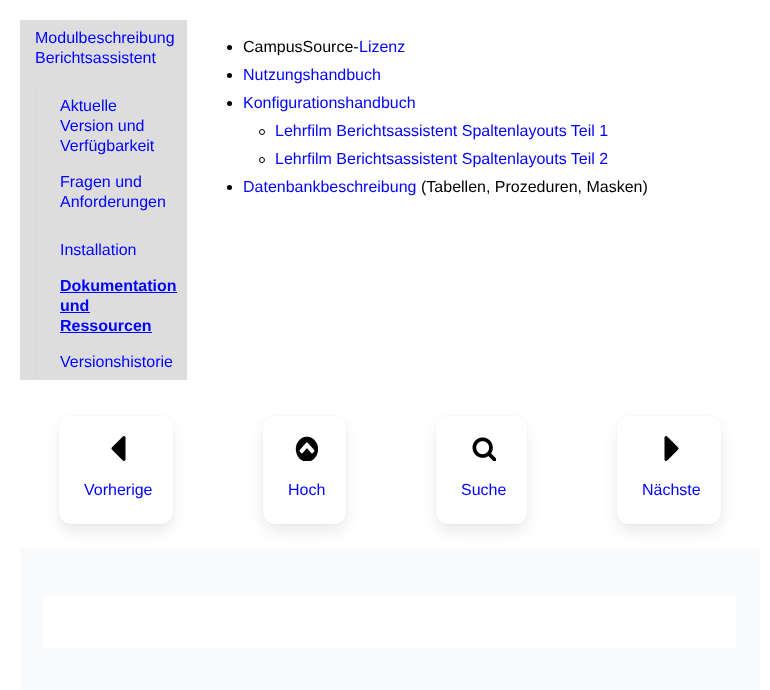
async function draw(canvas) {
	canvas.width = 770;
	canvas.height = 690;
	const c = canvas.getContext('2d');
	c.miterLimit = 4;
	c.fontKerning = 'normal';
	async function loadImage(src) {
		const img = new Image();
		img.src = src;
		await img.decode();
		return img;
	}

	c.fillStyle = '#fff';
	c.fillRect(0, 0, 770, 690);
	c.fillStyle = '#ddd';
	c.fillRect(20, 20, 167, 360);
	c.font = '16px Liberation Sans';
	c.fillStyle = '#00f';
	c.fillText('Modulbeschreibung', 35, 43);
	c.fillText('Berichtsassistent', 35, 63);
	c.fillStyle = '#d6d9e0';
	c.fillRect(35, 88, 1, 292);
	c.fillStyle = '#00f';
	for (const [text, x, y] of [
		['Aktuelle', 60, 111],
		['Version und', 60, 131],
		['Verfügbarkeit', 60, 151],
		['Fragen und', 60, 187],
		['Anforderungen', 60, 207],
		['Installation', 60, 255],
	]) {
		c.fillText(text, x, y);
	}
	c.font = 'bold 16px Liberation Sans';
	c.fillText('Dokumentation', 60, 291);
	c.fillRect(60, 292, 117, 1);
	c.fillText('und', 60, 311);
	c.fillRect(60, 312, 30, 1);
	c.fillText('Ressourcen', 60, 331);
	c.fillRect(60, 332, 92, 1);
	c.font = '16px Liberation Sans';
	c.fillText('Versionshistorie', 60, 367);
	c.fillStyle = '#000';
	c.beginPath();
	c.arc(229.5, 47.5, 2.5, 0, 2 * Math.PI);
	c.fill();
	c.fillText('CampusSource-', 243, 52);
	c.fillStyle = '#00f';
	c.fillText('Lizenz', 359, 52);
	c.fillStyle = '#000';
	c.beginPath();
	c.arc(229.5, 75.5, 2.5, 0, 2 * Math.PI);
	c.fill();
	c.fillStyle = '#00f';
	c.fillText('Nutzungshandbuch', 243, 80);
	c.fillStyle = '#000';
	c.beginPath();
	c.arc(229.5, 103.5, 2.5, 0, 2 * Math.PI);
	c.fill();
	c.fillStyle = '#00f';
	c.fillText('Konfigurationshandbuch', 243, 108);
	c.beginPath();
	c.arc(262, 132, 2.5, 0, 2 * Math.PI);
	c.strokeStyle = '#000';
	c.stroke();
	c.fillText('Lehrfilm Berichtsassistent Spaltenlayouts Teil 1', 275, 136);
	c.beginPath();
	c.arc(262, 160, 2.5, 0, 2 * Math.PI);
	c.stroke();
	c.fillText('Lehrfilm Berichtsassistent Spaltenlayouts Teil 2', 275, 164);
	c.fillStyle = '#000';
	c.beginPath();
	c.arc(229.5, 187.5, 2.5, 0, 2 * Math.PI);
	c.fill();
	c.fillStyle = '#00f';
	c.fillText('Datenbankbeschreibung', 243, 192);
	c.fillStyle = '#000';
	c.fillText('(Tabellen, Prozeduren, Masken)', 421, 192);
	c.beginPath();
	c.roundRect(58.5, 415.5, 115, 109, 12.5);
	c.strokeStyle = '#fafafa';
	c.stroke();
	c.fillStyle = '#f9fafb';
	c.fillRect(20, 548, 740, 142);
	c.fillStyle = '#090a0c1a';
	c.filter = 'blur(8px)';
	c.beginPath();
	c.roundRect(61, 426, 110, 104, 10);
	c.fill();
	c.filter = 'none';
	c.fillStyle = '#fff';
	c.beginPath();
	c.roundRect(59, 416, 114, 108, 12);
	c.fill();
	c.drawImage(await loadImage('img1.png'), 111, 436, 15, 25);
	c.fillStyle = '#00f';
	c.fillText('Vorherige', 84, 495);
	c.beginPath();
	c.roundRect(262.5, 415.5, 84, 109, 12.5);
	c.stroke();
	c.fillStyle = '#090a0c1a';
	c.filter = 'blur(8px)';
	c.beginPath();
	c.roundRect(265, 426, 79, 104, 10);
	c.fill();
	c.filter = 'none';
	c.fillStyle = '#fff';
	c.beginPath();
	c.roundRect(263, 416, 83, 108, 12);
	c.fill();
	c.drawImage(await loadImage('img2.png'), 295, 436, 23, 25);
	c.fillStyle = '#00f';
	c.fillText('Hoch', 288, 495);
	c.beginPath();
	c.roundRect(435.5, 415.5, 92, 109, 12.5);
	c.stroke();
	c.fillStyle = '#090a0c1a';
	c.filter = 'blur(8px)';
	c.beginPath();
	c.roundRect(438, 426, 87, 104, 10);
	c.fill();
	c.filter = 'none';
	c.fillStyle = '#fff';
	c.beginPath();
	c.roundRect(436, 416, 91, 108, 12);
	c.fill();
	c.drawImage(await loadImage('img3.png'), 472, 437, 24, 24);
	c.fillStyle = '#00f';
	c.fillText('Suche', 461, 495);
	c.beginPath();
	c.roundRect(616.5, 415.5, 105, 109, 12.5);
	c.stroke();
	c.fillStyle = '#090a0c1a';
	c.filter = 'blur(8px)';
	c.beginPath();
	c.roundRect(619, 426, 100, 104, 10);
	c.fill();
	c.filter = 'none';
	c.fillStyle = '#fff';
	c.beginPath();
	c.roundRect(617, 416, 104, 108, 12);
	c.fill();
	c.drawImage(await loadImage('img4.png'), 664, 436, 15, 25);
	c.fillStyle = '#00f';
	c.fillText('Nächste', 642, 495);
	c.fillStyle = '#fff';
	c.fillRect(44, 596, 692, 52);
}

draw(document.querySelector('canvas'));
